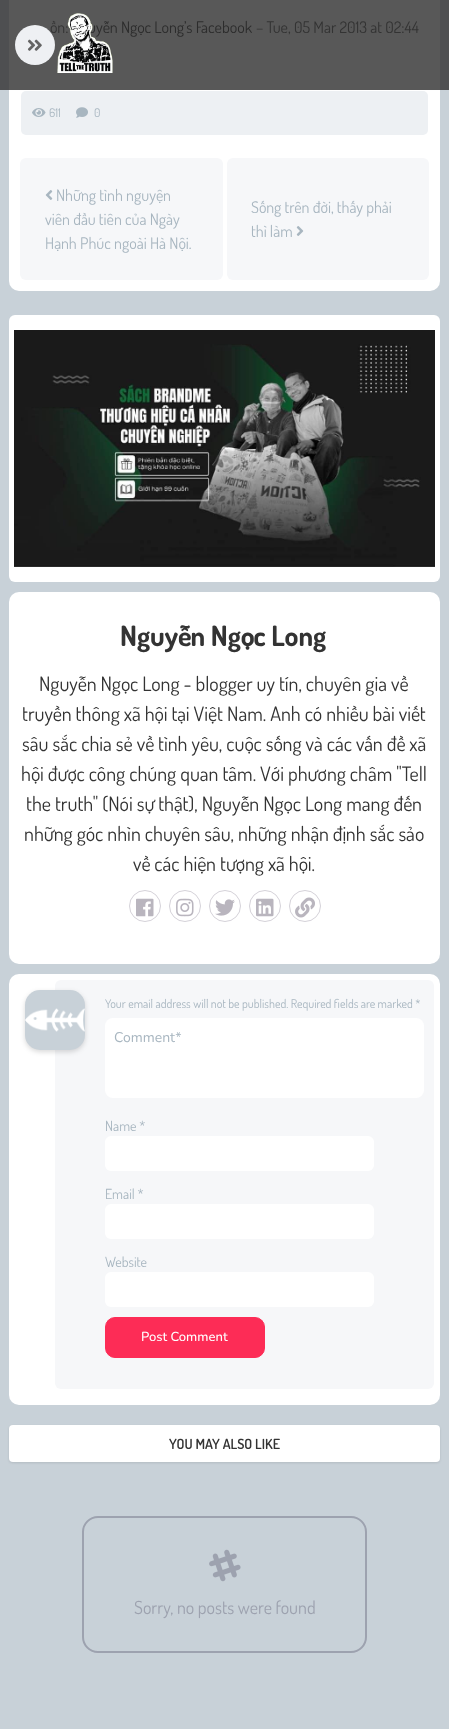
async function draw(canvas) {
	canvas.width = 449;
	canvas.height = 1729;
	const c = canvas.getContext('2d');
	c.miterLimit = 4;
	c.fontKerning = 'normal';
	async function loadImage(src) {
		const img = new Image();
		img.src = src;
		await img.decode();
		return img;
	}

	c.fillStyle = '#c8d1d8';
	c.fillRect(0, 0, 449, 1729);
	c.fillStyle = '#4e4f51';
	c.fillRect(0, 0, 449, 90);
	c.fillStyle = '#fff';
	c.beginPath();
	c.roundRect(9, -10, 431, 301, 10);
	c.fill();
	c.fillStyle = '#585858';
	c.fillRect(9, 0, 431, 90);
	c.font = '16px Dosis';
	c.fillStyle = '#333';
	c.fillText('ồn:', 50, 33);
	c.fillStyle = '#eef0f3';
	c.beginPath();
	c.arc(35, 45, 20, 0, 2 * Math.PI);
	c.fill();
	c.drawImage(await loadImage('img1.png'), 27, 39, 15, 12);
	c.fillStyle = '#2c2c2c';
	c.fillText('uyễn Ngọc Long’s Facebook', 88, 33);
	c.drawImage(await loadImage('img2.png'), 57, 13, 56, 60);
	c.fillStyle = '#333';
	c.fillText('– Tue, 05 Mar 2013 at 02:44', 256, 33);
	c.fillStyle = '#edf0f3';
	c.beginPath();
	c.roundRect(21, 91, 407, 44, 5);
	c.fill();
	c.drawImage(await loadImage('img3.png'), 32, 108, 14, 9);
	c.font = '12px Dosis';
	c.fillStyle = '#a8b6c0';
	c.fillText('611', 49, 117);
	c.drawImage(await loadImage('img4.png'), 76, 107, 12, 11);
	c.fillText('0', 94, 117);
	c.fillStyle = '#f6f7f9';
	c.beginPath();
	c.roundRect(20, 158, 203, 122, 6);
	c.fill();
	c.drawImage(await loadImage('img5.png'), 45, 190, 8, 10);
	c.font = '16px Dosis';
	c.fillStyle = '#a8b6c0';
	for (const [text, x, y] of [
		['Những tình nguyện', 56, 201],
		['viên đầu tiên của Ngày', 45, 225],
		['Hạnh Phúc ngoài Hà Nội.', 45, 249],
	]) {
		c.fillText(text, x, y);
	}
	c.fillStyle = '#f6f7f9';
	c.beginPath();
	c.roundRect(227, 158, 202, 122, 6);
	c.fill();
	c.fillStyle = '#a8b6c0';
	c.fillText('Sống trên đời, thấy phải', 251, 213);
	c.fillText('thì làm', 251, 237);
	c.drawImage(await loadImage('img6.png'), 296, 226, 8, 10);
	c.fillStyle = '#fff';
	c.beginPath();
	c.roundRect(9, 315, 431, 267, 6);
	c.fill();
	c.drawImage(await loadImage('img7.png'), 14, 330, 421, 237);
	c.beginPath();
	c.roundRect(9, 592, 431, 372, 10);
	c.fill();
	c.font = 'bold 28px Dosis';
	c.fillStyle = '#333';
	c.fillText('Nguyễn Ngọc Long', 120, 646);
	c.font = '20px Dosis';
	for (const [text, x, y] of [
		['Nguyễn Ngọc Long - blogger uy tín, chuyên gia về', 39, 691],
		['truyền thông xã hội tại Việt Nam. Anh có nhiều bài viết', 22, 721],
		['sâu sắc chia sẻ về tình yêu, cuộc sống và các vấn đề xã', 22, 751],
		['hội được công chúng quan tâm. Với phương châm "Tell', 21, 781],
		['the truth" (Nói sự thật), Nguyễn Ngọc Long mang đến', 26, 811],
		['những góc nhìn chuyên sâu, những nhận định sắc sảo', 24, 841],
		['về các hiện tượng xã hội.', 133, 871],
	]) {
		c.fillText(text, x, y);
	}
	c.beginPath();
	c.arc(145, 906, 15.5, 0, 2 * Math.PI);
	c.strokeStyle = '#d5d2d9';
	c.stroke();
	c.drawImage(await loadImage('img8.png'), 136, 898, 18, 19);
	c.beginPath();
	c.arc(185, 906, 15.5, 0, 2 * Math.PI);
	c.stroke();
	c.drawImage(await loadImage('img9.png'), 176, 898, 18, 19);
	c.beginPath();
	c.arc(225, 906, 15.5, 0, 2 * Math.PI);
	c.stroke();
	c.drawImage(await loadImage('img10.png'), 215, 899, 20, 17);
	c.beginPath();
	c.arc(265, 906, 15.5, 0, 2 * Math.PI);
	c.stroke();
	c.drawImage(await loadImage('img11.png'), 256, 898, 18, 19);
	c.beginPath();
	c.arc(305, 906, 15.5, 0, 2 * Math.PI);
	c.stroke();
	c.drawImage(await loadImage('img12.png'), 295, 897, 20, 21);
	c.fillStyle = '#fff';
	c.beginPath();
	c.roundRect(9, 974, 431, 431, 10);
	c.fill();
	c.fillStyle = '#f6f7f9';
	c.beginPath();
	c.roundRect(55, 980, 379, 409, 6);
	c.fill();
	c.fillStyle = '#00000026';
	c.filter = 'blur(2.5px)';
	c.beginPath();
	c.roundRect(25, 992, 60, 60, 15);
	c.fill();
	c.filter = 'none';
	c.fillStyle = '#c8d1d8';
	c.beginPath();
	c.roundRect(25, 990, 60, 60, 15);
	c.fill();
	c.drawImage(await loadImage('img13.png'), 25, 1008, 60, 24);
	c.font = '12px Dosis';
	c.fillStyle = '#a8b6c0';
	c.fillText('Your email address will not be published. Required fields are marked *', 105, 1008);
	c.fillStyle = '#fff';
	c.beginPath();
	c.roundRect(105, 1018, 319, 80, 8);
	c.fill();
	c.font = '14px Nunito';
	c.fillStyle = '#a8b6c0';
	c.fillText('Comment*', 114, 1042);
	c.font = '14px Dosis';
	c.fillText('Name *', 105, 1131);
	c.fillStyle = '#fff';
	c.beginPath();
	c.roundRect(105, 1136, 269, 35, 6);
	c.fill();
	c.fillStyle = '#a8b6c0';
	c.fillText('Email *', 105, 1199);
	c.fillStyle = '#fff';
	c.beginPath();
	c.roundRect(105, 1204, 269, 35, 6);
	c.fill();
	c.fillStyle = '#a8b6c0';
	c.fillText('Website', 105, 1267);
	c.fillStyle = '#fff';
	c.beginPath();
	c.roundRect(105, 1272, 269, 35, 6);
	c.fill();
	c.fillStyle = '#fd2c56';
	c.beginPath();
	c.roundRect(105.5, 1317.5, 159, 40, 9.5);
	c.fill();
	c.strokeStyle = '#fd2c56';
	c.stroke();
	c.font = '500 13px Nunito';
	c.fillStyle = '#fff';
	c.fillText('Post Comment', 141, 1341);
	c.fillStyle = '#0000001a';
	c.filter = 'blur(1px)';
	c.beginPath();
	c.roundRect(9, 1426, 431, 37, 4);
	c.fill();
	c.filter = 'none';
	c.fillStyle = '#fff';
	c.beginPath();
	c.roundRect(9, 1425, 431, 37, 4);
	c.fill();
	c.font = '600 14px Dosis';
	c.fillStyle = '#333';
	c.fillText('YOU MAY ALSO LIKE', 169, 1449);
	c.beginPath();
	c.roundRect(83, 1517, 283, 135, 15);
	c.strokeStyle = '#9da2af';
	c.lineWidth = 2;
	c.stroke();
	c.drawImage(await loadImage('img14.png'), 209, 1549, 32, 33);
	c.font = '18px Dosis';
	c.fillStyle = '#9da2af';
	c.fillText('Sorry, no posts were found', 134, 1614);
}

draw(document.querySelector('canvas'));
